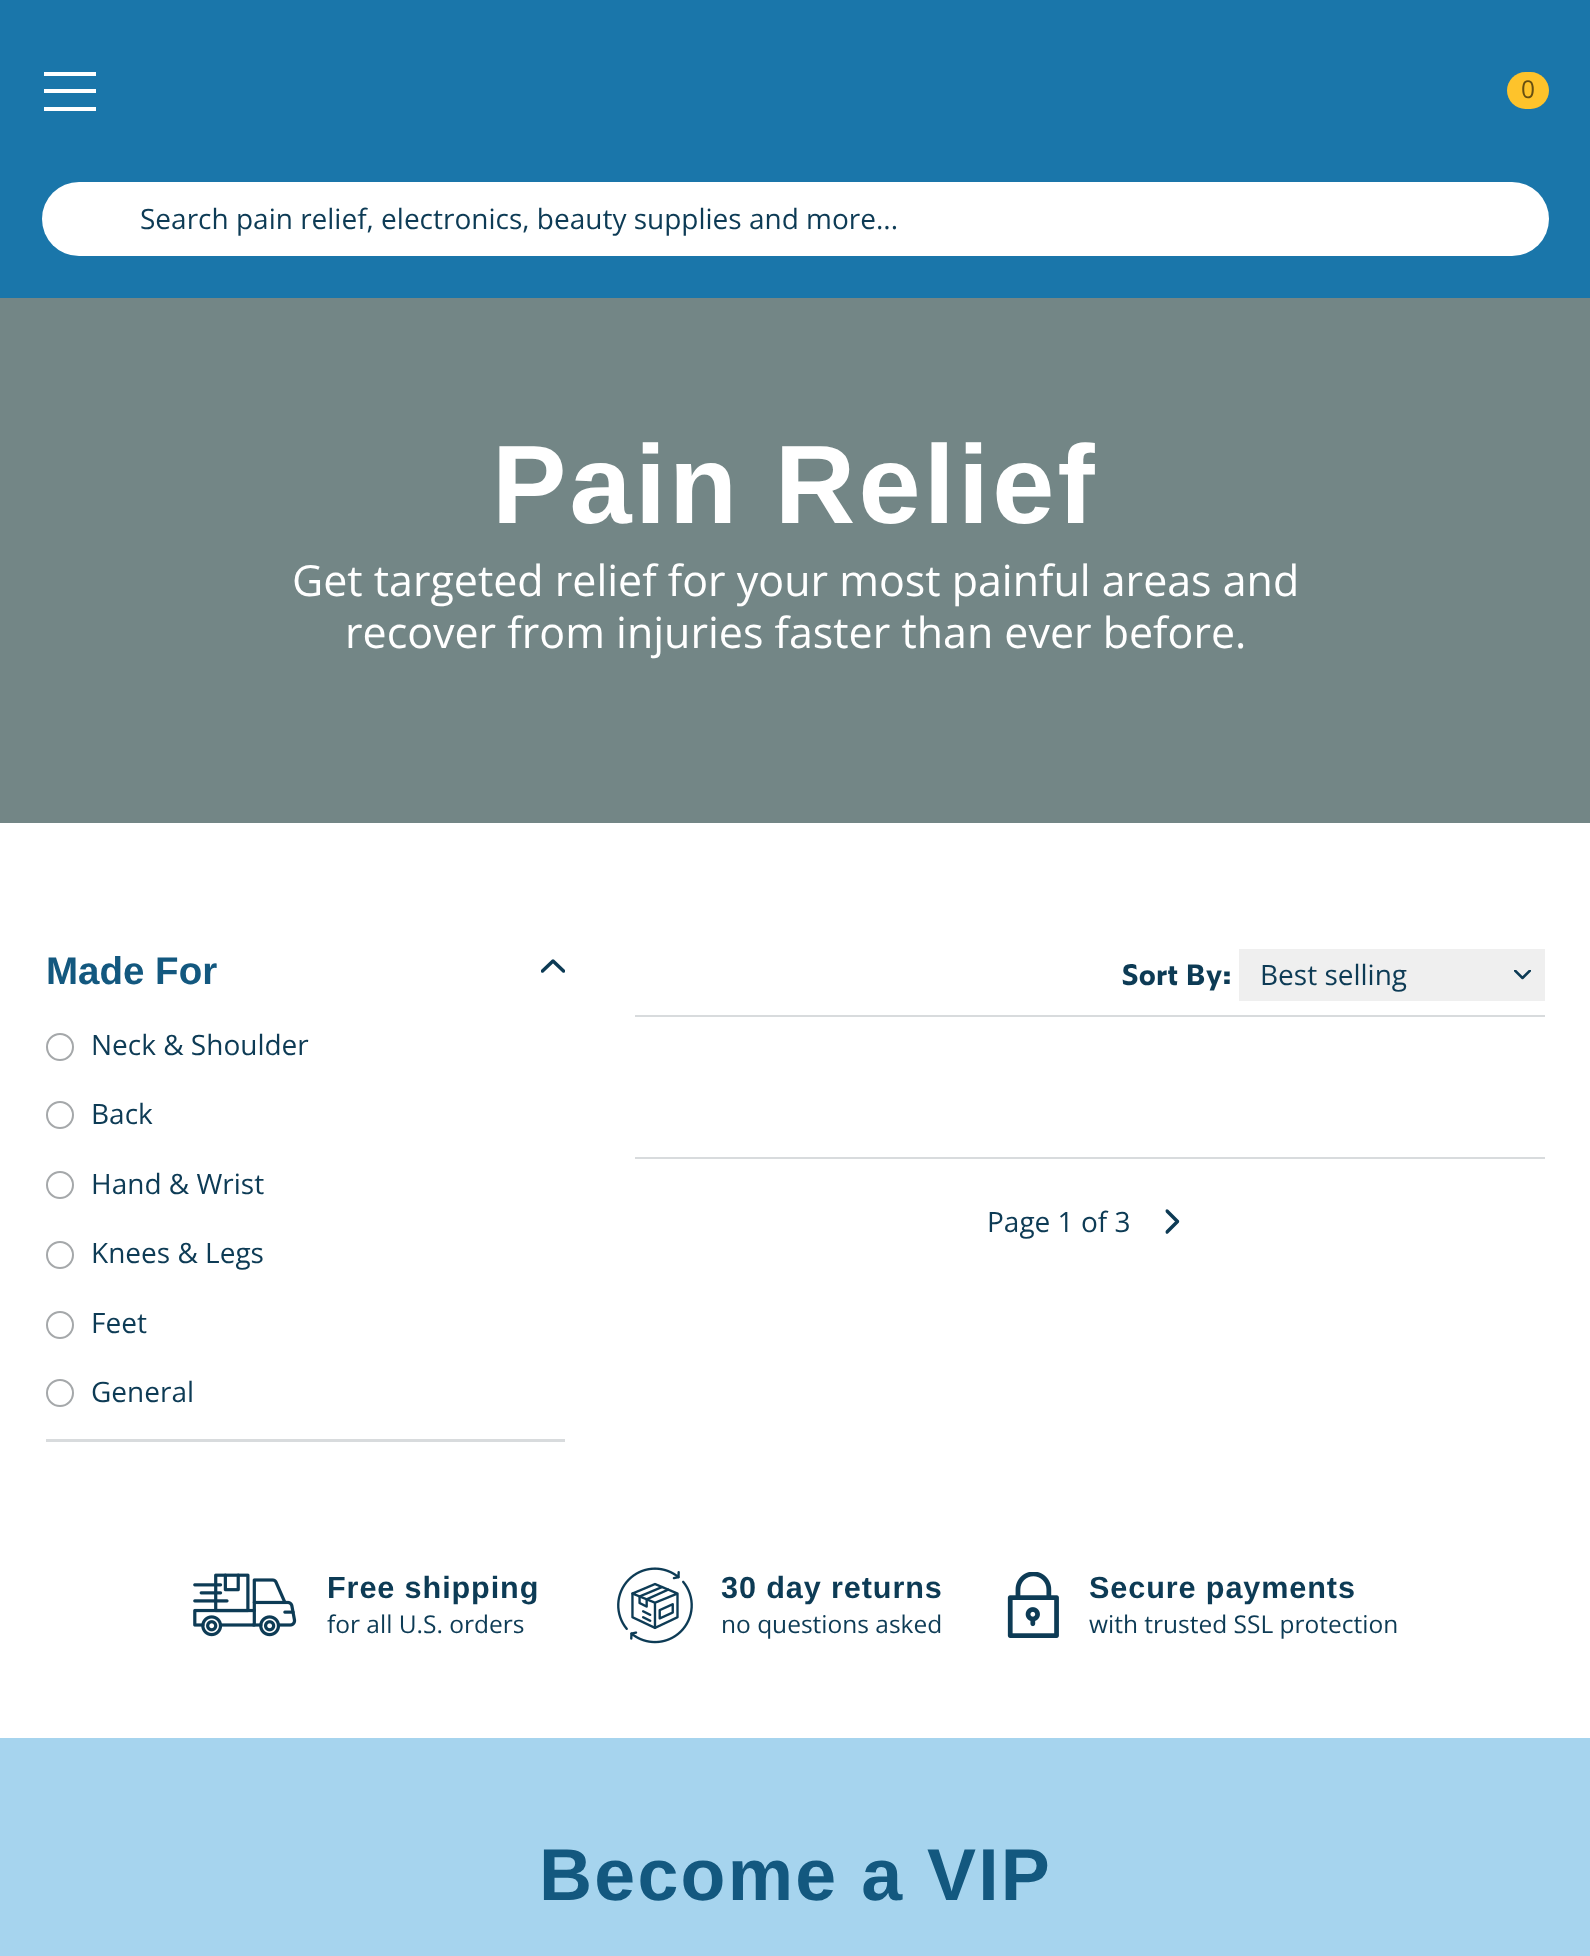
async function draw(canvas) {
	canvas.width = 1590;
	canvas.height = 1956;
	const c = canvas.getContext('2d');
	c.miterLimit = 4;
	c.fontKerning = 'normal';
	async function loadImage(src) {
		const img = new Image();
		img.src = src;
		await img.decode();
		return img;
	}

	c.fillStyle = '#fff';
	c.fillRect(0, 0, 1590, 1956);
	for (const [x, y, w, h, color] of [
		[0, 0, 1590, 298, '#1a76aa'],
		[44, 72, 52, 4, '#fff'],
		[44, 107, 52, 4, '#fff'],
		[44, 89, 52, 4, '#fff'],
	]) {
		c.fillStyle = color;
		c.fillRect(x, y, w, h);
	}
	c.fillStyle = '#fec32b';
	c.beginPath();
	c.roundRect(1507, 72, 42, 37, 18.5);
	c.fill();
	c.font = '24.5px Open Sans';
	c.fillStyle = '#664e11';
	c.fillText('0', 1521, 98);
	c.fillStyle = '#fff';
	c.beginPath();
	c.roundRect(42, 182, 1507, 74, 37);
	c.fill();
	c.font = '28px Open Sans';
	c.fillStyle = '#0d3b55';
	c.fillText('Search pain relief, electronics, beauty supplies and more...', 140, 229);
	c.fillStyle = '#738686';
	c.fillRect(0, 298, 1590, 525);
	c.letterSpacing = '3.25px';
	c.font = 'bold 111.5px Liberation Sans';
	c.fillStyle = '#fff';
	c.fillText('Pain Relief', 492, 523);
	c.letterSpacing = '0px';
	c.font = '42.95px Open Sans';
	c.fillText('Get targeted relief for your most painful areas and', 292, 596);
	c.fillText('recover from injuries faster than ever before.', 345, 648);
	c.fillStyle = '#d8dbdd';
	c.fillRect(46, 1439, 519, 3);
	c.font = 'bold 38.5px Liberation Sans';
	c.fillStyle = '#13587f';
	c.fillText('Made For', 46, 984);
	c.save();
	c.beginPath();
	c.rect(541, 959, 24, 14);
	c.clip();
	c.beginPath();
	c.moveTo(563.5, 971);
	c.lineTo(553, 961);
	c.lineTo(542.5, 971);
	c.strokeStyle = '#0d3b55';
	c.lineWidth = 3.5;
	c.lineCap = 'round';
	c.lineJoin = 'round';
	c.stroke();
	c.restore();
	c.beginPath();
	c.arc(60, 1047, 13, 0, 2 * Math.PI);
	c.strokeStyle = '#a5a8aa';
	c.lineWidth = 2;
	c.stroke();
	c.font = '28px Open Sans';
	c.fillStyle = '#0d3b55';
	c.fillText('Neck & Shoulder', 91, 1055);
	c.beginPath();
	c.arc(60, 1115, 13, 0, 2 * Math.PI);
	c.stroke();
	c.fillText('Back', 91, 1124);
	c.beginPath();
	c.arc(60, 1185, 13, 0, 2 * Math.PI);
	c.stroke();
	c.fillText('Hand & Wrist', 91, 1194);
	c.beginPath();
	c.arc(60, 1255, 13, 0, 2 * Math.PI);
	c.stroke();
	c.fillText('Knees & Legs', 91, 1263);
	c.beginPath();
	c.arc(60, 1325, 13, 0, 2 * Math.PI);
	c.stroke();
	c.fillText('Feet', 91, 1333);
	c.beginPath();
	c.arc(60, 1393, 13, 0, 2 * Math.PI);
	c.stroke();
	c.fillText('General', 91, 1402);
	c.fillStyle = '#d8dbdd';
	c.fillRect(635, 1015, 910, 2);
	c.font = 'bold 28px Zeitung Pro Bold';
	c.fillStyle = '#0d3b55';
	c.fillText('Sort By:', 1121, 985);
	c.fillStyle = '#efefef';
	c.fillRect(1239, 949, 306, 52);
	c.font = '28px Open Sans';
	c.fillStyle = '#0d3b55';
	c.fillText('Best selling', 1260, 985);
	c.save();
	c.beginPath();
	c.rect(1514, 970, 17, 10);
	c.clip();
	c.beginPath();
	c.moveTo(1515, 970.5);
	c.lineTo(1522.5, 978);
	c.lineTo(1530, 970.5);
	c.strokeStyle = '#0d3b55';
	c.lineWidth = 2.5;
	c.lineCap = 'round';
	c.lineJoin = 'round';
	c.stroke();
	c.restore();
	c.fillStyle = '#d8dbdd';
	c.fillRect(635, 1157, 910, 2);
	c.fillStyle = '#0d3b55';
	c.fillText('Page 1 of 3', 987, 1232);
	c.save();
	c.beginPath();
	c.moveTo(1165.5, 1234);
	c.lineTo(1165.5, 1209);
	c.lineTo(1179.5, 1209);
	c.lineTo(1179.5, 1234);
	c.closePath();
	c.clip();
	c.beginPath();
	c.moveTo(1167, 1232);
	c.lineTo(1177.5, 1221.5);
	c.lineTo(1167, 1211);
	c.strokeStyle = '#0d3b55';
	c.lineWidth = 3.5;
	c.lineCap = 'round';
	c.lineJoin = 'round';
	c.stroke();
	c.restore();
	c.drawImage(await loadImage('img1.png'), 193, 1573, 104, 64);
	c.letterSpacing = '0.9px';
	c.font = 'bold 30.6px Liberation Sans';
	c.fillText('Free shipping', 327, 1598);
	c.letterSpacing = '0px';
	c.font = '24.5px Open Sans';
	c.fillText('for all U.S. orders', 327, 1633);
	c.drawImage(await loadImage('img2.png'), 617, 1567, 76, 77);
	c.letterSpacing = '0.9px';
	c.font = 'bold 30.6px Liberation Sans';
	c.fillText('30 day returns', 721, 1598);
	c.letterSpacing = '0px';
	c.font = '24.5px Open Sans';
	c.fillText('no questions asked', 721, 1633);
	c.drawImage(await loadImage('img3.png'), 1007, 1572, 52, 66);
	c.letterSpacing = '0.9px';
	c.font = 'bold 30.6px Liberation Sans';
	c.fillText('Secure payments', 1089, 1598);
	c.letterSpacing = '0px';
	c.font = '24.5px Open Sans';
	c.fillText('with trusted SSL protection', 1089, 1633);
	c.fillStyle = '#a6d4ee';
	c.fillRect(0, 1738, 1590, 218);
	c.letterSpacing = '2.25px';
	c.font = 'bold 73.5px Liberation Sans';
	c.fillStyle = '#13587f';
	c.fillText('Become a VIP', 539, 1900);
}

draw(document.querySelector('canvas'));
